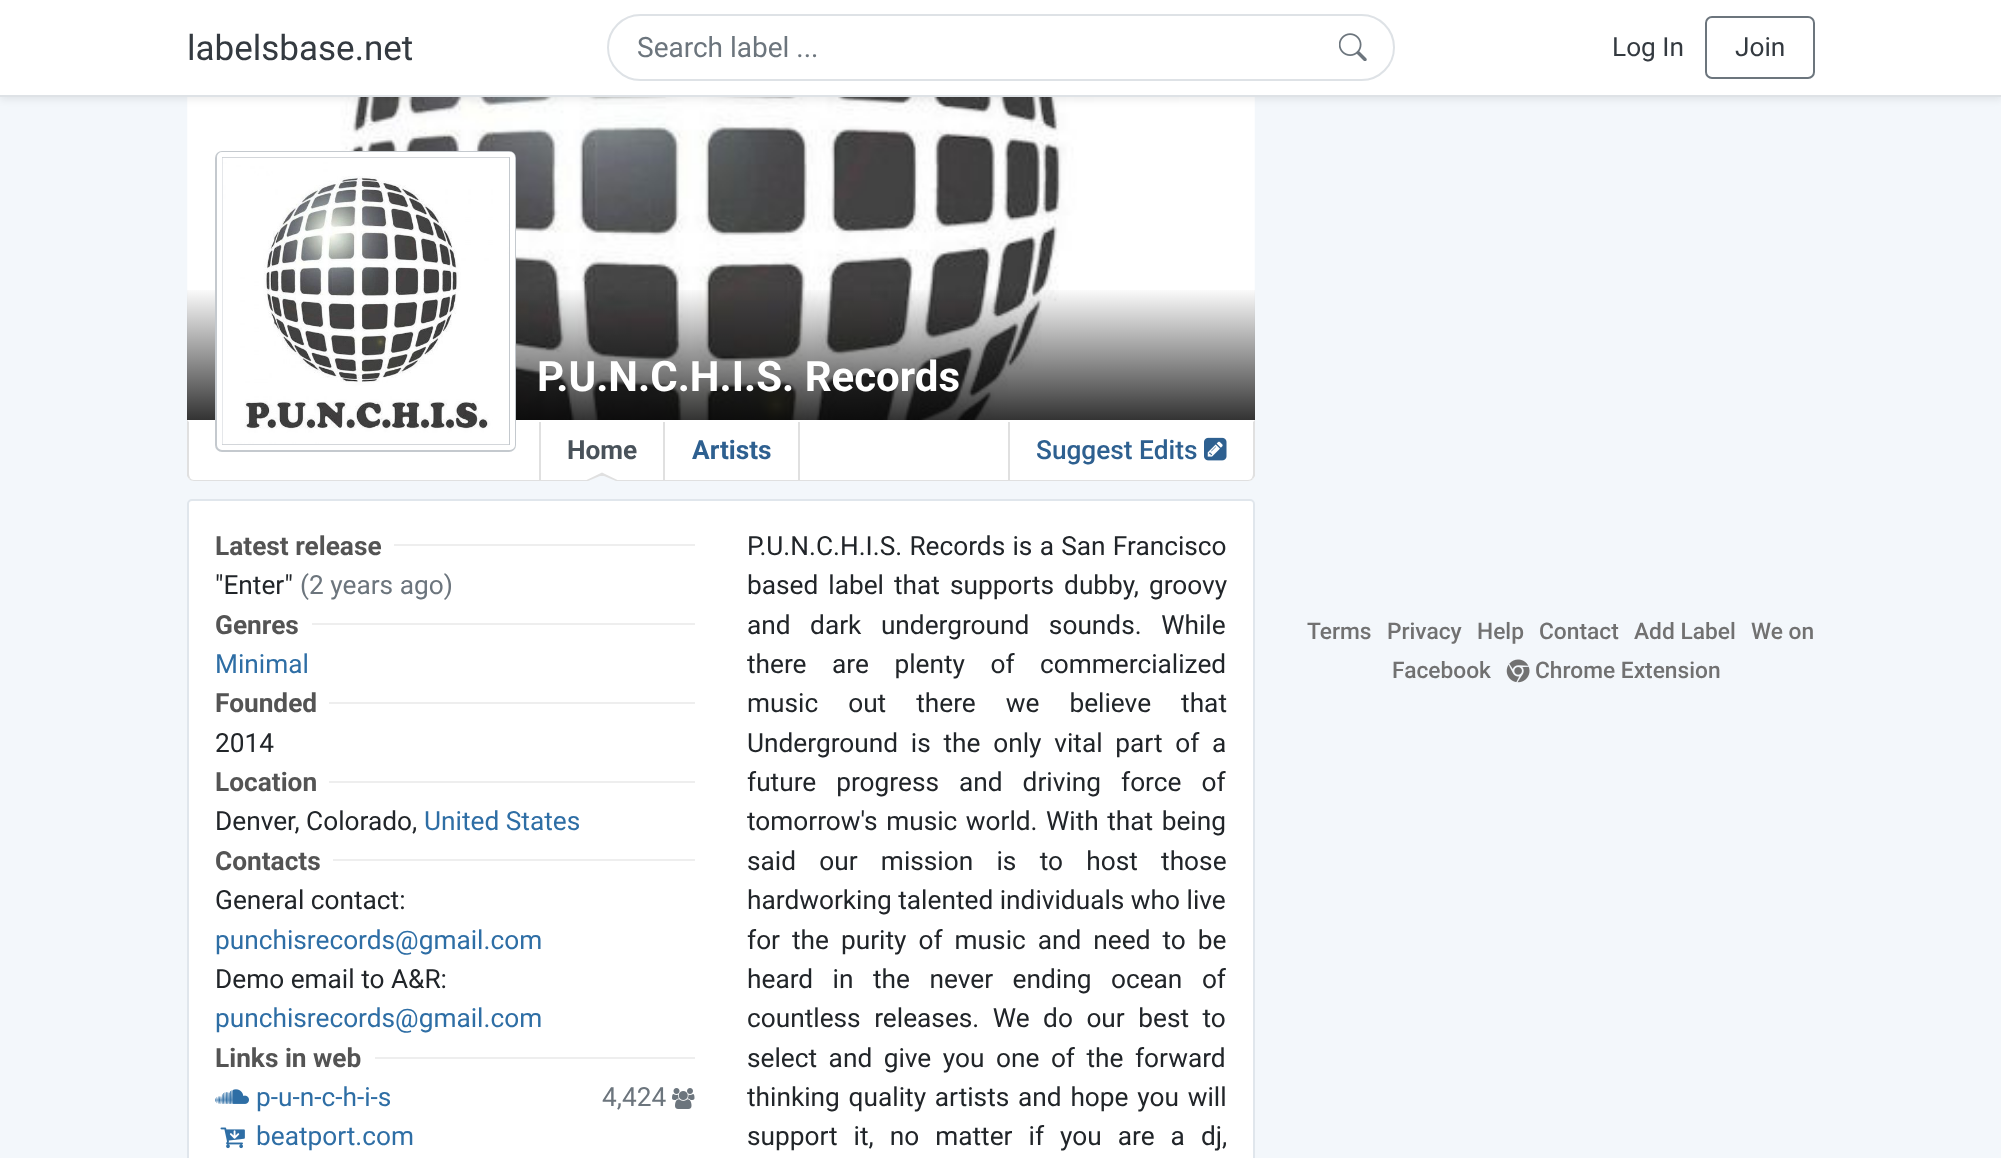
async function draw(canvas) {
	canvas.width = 2001;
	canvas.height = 1158;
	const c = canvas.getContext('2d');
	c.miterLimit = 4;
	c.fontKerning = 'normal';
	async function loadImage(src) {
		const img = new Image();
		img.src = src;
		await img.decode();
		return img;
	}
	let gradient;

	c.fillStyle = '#f3f7fb';
	c.fillRect(0, 0, 2001, 1158);
	c.drawImage(await loadImage('img2.png'), 187, 97, 1068, 323);
	c.fillStyle = '#00000012';
	c.filter = 'blur(3.5px)';
	c.beginPath();
	c.rect(0, 4, 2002, 96);
	c.fill();
	c.filter = 'none';
	c.fillStyle = '#fff';
	c.fillRect(0, 0, 2001, 95);
	c.fillStyle = '#dee2e6';
	c.fillRect(0, 95, 2001, 2);
	c.font = '35px Roboto';
	c.fillStyle = '#343a40';
	c.fillText('labelsbase.net', 187, 60);
	c.beginPath();
	c.roundRect(608, 15, 786, 65, 32.5);
	c.strokeStyle = '#dee2e6';
	c.lineWidth = 2;
	c.stroke();
	c.font = '28px Roboto';
	c.fillStyle = '#6c757d';
	c.fillText('Search label ...', 637, 57);
	c.drawImage(await loadImage('img1.png'), 1339, 33, 28, 28);
	c.font = '26.25px Roboto';
	c.fillStyle = '#343a40';
	c.fillText('Log In', 1612, 56);
	c.beginPath();
	c.roundRect(1706, 17, 108, 61, 6);
	c.strokeStyle = '#6c757d';
	c.stroke();
	c.fillText('Join', 1735, 56);
	gradient = c.createLinearGradient(721, 87, 721, 420);
	gradient.addColorStop(0.6, '#00000000');
	gradient.addColorStop(1, '#000000cc');
	c.fillStyle = gradient;
	c.fillRect(187, 290, 1068, 130);
	c.font = 'bold 42px Roboto';
	c.fillStyle = '#fff';
	c.fillText('P.U.N.C.H.I.S. Records', 537, 391);
	c.beginPath();
	c.roundRect(187, 420, 1068, 61, [0, 0, 7, 7]);
	c.fill();
	c.fillStyle = '#e0e0e0';
	c.beginPath();
	c.moveTo(1255, 420);
	c.lineTo(1255, 476);
	c.lineTo(1253, 479);
	c.lineTo(1252, 478);
	c.bezierCurveTo(1252, 477, 1253, 476, 1253, 474);
	c.lineTo(1253, 422);
	c.closePath();
	c.fill();
	c.beginPath();
	c.moveTo(1253, 479);
	c.bezierCurveTo(1252, 480, 1250, 481, 1248, 481);
	c.lineTo(194, 481);
	c.bezierCurveTo(192, 481, 190, 480, 189, 479);
	c.lineTo(190, 478);
	c.bezierCurveTo(191, 479, 192, 480, 194, 480);
	c.lineTo(1248, 480);
	c.bezierCurveTo(1250, 480, 1251, 479, 1252, 478);
	c.closePath();
	c.fill();
	c.beginPath();
	c.moveTo(189, 422);
	c.lineTo(189, 474);
	c.bezierCurveTo(189, 476, 190, 477, 190, 478);
	c.lineTo(189, 479);
	c.lineTo(187, 476);
	c.lineTo(187, 420);
	c.closePath();
	c.fill();
	c.fillStyle = '#c4c9ce';
	c.beginPath();
	c.roundRect(215, 151, 301, 301, 7);
	c.fill();
	c.beginPath();
	c.roundRect(219.5, 154.5, 293, 293, 2.5);
	c.strokeStyle = '#fff';
	c.lineWidth = 5;
	c.stroke();
	c.drawImage(await loadImage('img3.png'), 222, 157, 287, 288);
	c.fillStyle = '#e0e0e0';
	c.fillRect(663, 422, 2, 59);
	c.fillRect(539, 422, 2, 59);
	c.font = 'bold 26.25px Roboto';
	c.fillStyle = '#49525a';
	c.fillText('Home', 567, 459);
	c.fillStyle = '#e0e0e0';
	c.beginPath();
	c.moveTo(619.5, 481);
	c.lineTo(584.5, 481);
	c.lineTo(602, 472.5);
	c.closePath();
	c.fill();
	c.fillStyle = '#f3f7fb';
	c.beginPath();
	c.moveTo(616, 481);
	c.lineTo(588, 481);
	c.lineTo(600, 476);
	c.lineTo(604, 476);
	c.closePath();
	c.fill();
	c.fillStyle = '#e0e0e0';
	c.fillRect(798, 422, 2, 59);
	c.fillStyle = '#2e6090';
	c.fillText('Artists', 692, 459);
	c.fillStyle = '#e0e0e0';
	c.fillRect(1008, 422, 2, 59);
	c.font = '500 26.25px Roboto';
	c.fillStyle = '#2e6090';
	c.fillText('Suggest Edits', 1036, 459);
	c.drawImage(await loadImage('img4.png'), 1204, 437, 23, 24);
	c.fillStyle = '#fff';
	c.beginPath();
	c.roundRect(188, 500, 1066, 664, 4);
	c.fill();
	c.strokeStyle = '#e0e6ec';
	c.lineWidth = 2;
	c.stroke();
	c.fillStyle = '#eee';
	c.fillRect(394, 544, 301, 2);
	c.font = 'bold 26.25px Roboto';
	c.fillStyle = '#545454';
	c.fillText('Latest release', 215, 555);
	c.font = '26.25px Roboto';
	c.fillStyle = '#212529';
	c.fillText('"Enter"', 215, 594);
	c.fillStyle = '#6c757d';
	c.fillText('(2 years ago)', 300, 594);
	c.fillStyle = '#eee';
	c.fillRect(312, 623, 383, 2);
	c.font = 'bold 26.25px Roboto';
	c.fillStyle = '#545454';
	c.fillText('Genres', 215, 634);
	c.font = '26.25px Roboto';
	c.fillStyle = '#2e6ea5';
	c.fillText('Minimal', 215, 673);
	c.fillStyle = '#eee';
	c.fillRect(329, 702, 366, 2);
	c.font = 'bold 26.25px Roboto';
	c.fillStyle = '#545454';
	c.fillText('Founded', 215, 712);
	c.font = '26.25px Roboto';
	c.fillStyle = '#212529';
	c.fillText('2014', 215, 752);
	c.fillStyle = '#eee';
	c.fillRect(329, 781, 366, 2);
	c.font = 'bold 26.25px Roboto';
	c.fillStyle = '#545454';
	c.fillText('Location', 215, 791);
	c.font = '26.25px Roboto';
	c.fillStyle = '#212529';
	c.fillText('Denver, Colorado,', 215, 830);
	c.fillStyle = '#2e6ea5';
	c.fillText('United States', 424, 830);
	c.fillStyle = '#eee';
	c.fillRect(333, 859, 362, 2);
	c.font = 'bold 26.25px Roboto';
	c.fillStyle = '#545454';
	c.fillText('Contacts', 215, 870);
	c.font = '26.25px Roboto';
	c.fillStyle = '#212529';
	c.fillText('General contact:', 215, 909);
	c.fillStyle = '#2e6ea5';
	c.fillText('punchisrecords@gmail.com', 215, 949);
	c.fillStyle = '#212529';
	c.fillText('Demo email to A&R:', 215, 988);
	c.fillStyle = '#2e6ea5';
	c.fillText('punchisrecords@gmail.com', 215, 1027);
	c.fillStyle = '#eee';
	c.fillRect(375, 1057, 320, 2);
	c.font = 'bold 26.25px Roboto';
	c.fillStyle = '#545454';
	c.fillText('Links in web', 215, 1067);
	c.drawImage(await loadImage('img5.png'), 215, 1089, 34, 15);
	c.font = '26.25px Roboto';
	c.fillStyle = '#2e6ea5';
	c.fillText('p-u-n-c-h-i-s', 256, 1106);
	c.fillStyle = '#6c757d';
	c.fillText('4,424', 602, 1106);
	c.drawImage(await loadImage('img6.png'), 672, 1088, 23, 21);
	c.drawImage(await loadImage('img7.png'), 220, 1127, 25, 22);
	c.fillStyle = '#2e6ea5';
	c.fillText('beatport.com', 256, 1145);
	c.wordSpacing = '0.75px';
	c.fillStyle = '#212529';
	c.fillText('P.U.N.C.H.I.S. Records is a San Francisco', 747, 555);
	c.wordSpacing = '3.5px';
	c.fillText('based label that supports dubby, groovy', 747, 594);
	c.wordSpacing = '13px';
	c.fillText('and dark underground sounds. While', 747, 634);
	c.wordSpacing = '19px';
	c.fillText('there are plenty of commercialized', 747, 673);
	c.wordSpacing = '23.5px';
	c.fillText('music out there we believe that', 747, 712);
	c.wordSpacing = '6.25px';
	c.fillText('Underground is the only vital part of a', 747, 752);
	c.wordSpacing = '13.5px';
	c.fillText('future progress and driving force of', 747, 791);
	c.wordSpacing = '2px';
	c.fillText('tomorrow\'s music world. With that being', 747, 830);
	c.wordSpacing = '16.75px';
	c.fillText('said our mission is to host those', 747, 870);
	c.wordSpacing = '0px';
	c.fillText('hardworking talented individuals who live', 747, 909);
	c.wordSpacing = '5.5px';
	c.fillText('for the purity of music and need to be', 747, 949);
	c.wordSpacing = '13px';
	c.fillText('heard in the never ending ocean of', 747, 988);
	c.wordSpacing = '7px';
	c.fillText('countless releases. We do our best to', 747, 1027);
	c.wordSpacing = '5px';
	c.fillText('select and give you one of the forward', 747, 1067);
	c.wordSpacing = '2.25px';
	c.fillText('thinking quality artists and hope you will', 747, 1106);
	c.wordSpacing = '9.5px';
	c.fillText('support it, no matter if you are a dj,', 747, 1145);
	c.wordSpacing = '0px';
	c.font = '500 22.75px Roboto';
	c.fillStyle = '#717171';
	for (const [text, x, y] of [
		['Terms', 1307, 639],
		['Privacy', 1387, 639],
		['Help', 1477, 639],
		['Contact', 1539, 639],
		['Add Label', 1634, 639],
		['We on', 1751, 639],
		['Facebook', 1392, 678],
	]) {
		c.fillText(text, x, y);
	}
	c.drawImage(await loadImage('img8.png'), 1506, 659, 24, 24);
	c.fillText('Chrome Extension', 1535, 678);
}

draw(document.querySelector('canvas'));
